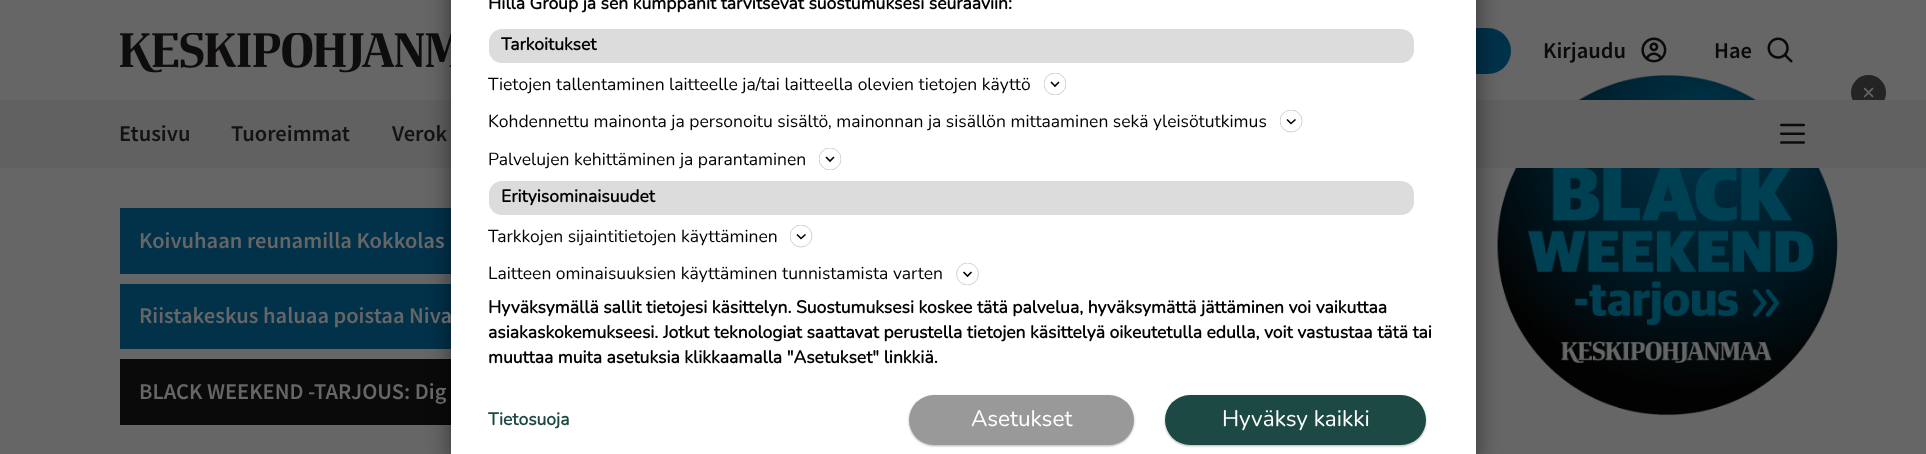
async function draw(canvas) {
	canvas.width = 1926;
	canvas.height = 454;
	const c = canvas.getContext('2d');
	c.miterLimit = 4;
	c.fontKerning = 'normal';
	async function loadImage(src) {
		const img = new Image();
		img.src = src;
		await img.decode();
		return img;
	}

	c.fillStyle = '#666';
	c.fillRect(0, 0, 1926, 454);
	c.drawImage(await loadImage('img1.png'), 120, 33, 331, 40);
	c.fillStyle = '#02314a';
	c.beginPath();
	c.roundRect(1409, 28, 102, 46, 23);
	c.fill();
	c.drawImage(await loadImage('img4.png'), 1497, 75, 341, 341);
	c.fillStyle = '#242424';
	c.beginPath();
	c.arc(1868.5, 92.5, 17.5, 0, 2 * Math.PI);
	c.fill();
	for (const [x, y, w, h, color] of [
		[0, 100, 1926, 68, '#616161'],
		[120, 208, 331, 66, '#02314a'],
		[120, 284, 331, 65, '#02314a'],
		[120, 359, 331, 66, '#0a0a0a'],
	]) {
		c.fillStyle = color;
		c.fillRect(x, y, w, h);
	}
	c.fillStyle = '#00000080';
	c.filter = 'blur(12.5px)';
	c.beginPath();
	c.roundRect(451, -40, 1025, 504, 2.5);
	c.fill();
	c.filter = 'none';
	c.font = '600 22.5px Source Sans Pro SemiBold';
	c.fillStyle = '#666';
	c.fillText('Riistakeskus haluaa poistaa Niva', 139, 323);
	c.fillStyle = '#fff';
	c.fillRect(451, 0, 1025, 454);
	c.font = 'bold 17.5px Nunito';
	c.fillStyle = '#000';
	c.fillText('Hilla Group ja sen kumppanit tarvitsevat suostumuksesi seuraaviin:', 488, 9);
	c.fillStyle = '#dcdcdc';
	c.beginPath();
	c.roundRect(489, 29, 925, 34, 13);
	c.fill();
	c.fillStyle = '#000';
	c.fillText('Tarkoitukset', 501, 50);
	c.font = '200 17.5px Nunito';
	c.fillText('Tietojen tallentaminen laitteelle ja/tai laitteella olevien tietojen käyttö', 488, 90);
	c.beginPath();
	c.moveTo(1051, 82);
	c.lineTo(1055, 86);
	c.lineTo(1059, 82);
	c.strokeStyle = '#000';
	c.lineWidth = 1.6;
	c.stroke();
	c.save();
	c.beginPath();
	c.rect(1044, 73, 22, 22);
	c.clip();
	c.beginPath();
	c.arc(1055, 84, 11, 0, 2 * Math.PI);
	c.strokeStyle = '#c4c4c4';
	c.lineWidth = 0.8;
	c.stroke();
	c.restore();
	c.fillText('Kohdennettu mainonta ja personoitu sisältö, mainonnan ja sisällön mittaaminen sekä yleisötutkimus', 488, 127);
	c.beginPath();
	c.moveTo(1287, 119.5);
	c.lineTo(1291, 123.5);
	c.lineTo(1295.5, 119.5);
	c.stroke();
	c.save();
	c.beginPath();
	c.rect(1280, 110, 23, 23);
	c.clip();
	c.beginPath();
	c.arc(1291, 121, 11, 0, 2 * Math.PI);
	c.strokeStyle = '#c4c4c4';
	c.lineWidth = 0.8;
	c.stroke();
	c.restore();
	c.fillText('Palvelujen kehittäminen ja parantaminen', 488, 165);
	c.beginPath();
	c.moveTo(826, 157);
	c.lineTo(830, 161);
	c.lineTo(834, 157);
	c.stroke();
	c.save();
	c.beginPath();
	c.rect(819, 148, 22, 22);
	c.clip();
	c.beginPath();
	c.arc(830, 159, 11, 0, 2 * Math.PI);
	c.strokeStyle = '#c4c4c4';
	c.lineWidth = 0.8;
	c.stroke();
	c.restore();
	c.fillStyle = '#dcdcdc';
	c.beginPath();
	c.roundRect(489, 181, 925, 34, 13);
	c.fill();
	c.font = 'bold 17.5px Nunito';
	c.fillStyle = '#000';
	c.fillText('Erityisominaisuudet', 501, 202);
	c.font = '200 17.5px Nunito';
	c.fillText('Tarkkojen sijaintitietojen käyttäminen', 488, 242);
	c.beginPath();
	c.moveTo(797, 234.5);
	c.lineTo(801, 238.5);
	c.lineTo(805.5, 234.5);
	c.stroke();
	c.save();
	c.beginPath();
	c.rect(790, 225, 23, 23);
	c.clip();
	c.beginPath();
	c.arc(801, 236, 11, 0, 2 * Math.PI);
	c.strokeStyle = '#c4c4c4';
	c.lineWidth = 0.8;
	c.stroke();
	c.restore();
	c.fillText('Laitteen ominaisuuksien käyttäminen tunnistamista varten', 488, 279);
	c.beginPath();
	c.moveTo(963.5, 272);
	c.lineTo(967.5, 276);
	c.lineTo(971.5, 272);
	c.stroke();
	c.save();
	c.beginPath();
	c.rect(956, 263, 23, 22);
	c.clip();
	c.beginPath();
	c.arc(967.5, 274, 11, 0, 2 * Math.PI);
	c.strokeStyle = '#c4c4c4';
	c.lineWidth = 0.8;
	c.stroke();
	c.restore();
	c.font = 'bold 17.5px Nunito';
	for (const [text, x, y] of [
		['Hyväksymällä sallit tietojesi käsittelyn. Suostumuksesi koskee tätä palvelua, hyväksymättä jättäminen voi vaikuttaa', 488, 313],
		['asiakaskokemukseesi. Jotkut teknologiat saattavat perustella tietojen käsittelyä oikeutetulla edulla, voit vastustaa tätä tai', 488, 338],
		['muuttaa muita asetuksia klikkaamalla "Asetukset" linkkiä.', 488, 363],
	]) {
		c.fillText(text, x, y);
	}
	c.fillStyle = '#1c4944';
	c.fillText('Tietosuoja', 488, 425);
	c.fillStyle = '#0000004d';
	c.filter = 'blur(1px)';
	c.beginPath();
	c.roundRect(909, 396, 225, 50, 25);
	c.fill();
	c.filter = 'none';
	c.fillStyle = '#999';
	c.beginPath();
	c.roundRect(909, 395, 225, 50, 25);
	c.fill();
	c.font = '200 22.5px Nunito';
	c.fillStyle = '#fff';
	c.fillText('Asetukset', 971, 426);
	c.fillStyle = '#0000004d';
	c.filter = 'blur(1px)';
	c.beginPath();
	c.roundRect(1165, 396, 261, 50, 25);
	c.fill();
	c.filter = 'none';
	c.fillStyle = '#1c4944';
	c.beginPath();
	c.roundRect(1165, 395, 261, 50, 25);
	c.fill();
	c.fillStyle = '#fff';
	c.fillText('Hyväksy kaikki', 1222, 426);
	c.font = '600 22.5px Source Sans Pro SemiBold';
	c.fillStyle = '#0a0a0a';
	c.fillText('Kirjaudu', 1543, 58);
	c.drawImage(await loadImage('img2.png'), 1641, 37, 26, 26);
	c.fillText('Hae', 1714, 58);
	c.drawImage(await loadImage('img3.png'), 1767, 37, 26, 26);
	c.font = '22.5px Liberation Sans';
	c.fillStyle = '#666';
	c.fillText('×', 1862, 100);
	c.font = '600 22.5px Source Sans Pro SemiBold';
	c.fillStyle = '#131313';
	for (const [text, x, y] of [
		['Etusivu', 119, 141],
		['Tuoreimmat', 231, 141],
		['Verok', 392, 141],
	]) {
		c.fillText(text, x, y);
	}
	c.drawImage(await loadImage('img5.png'), 1780, 123, 25, 21);
	c.fillStyle = '#666';
	c.fillText('Koivuhaan reunamilla Kokkolas', 139, 248);
	c.fillText('BLACK WEEKEND -TARJOUS: Dig', 139, 399);
}

draw(document.querySelector('canvas'));
